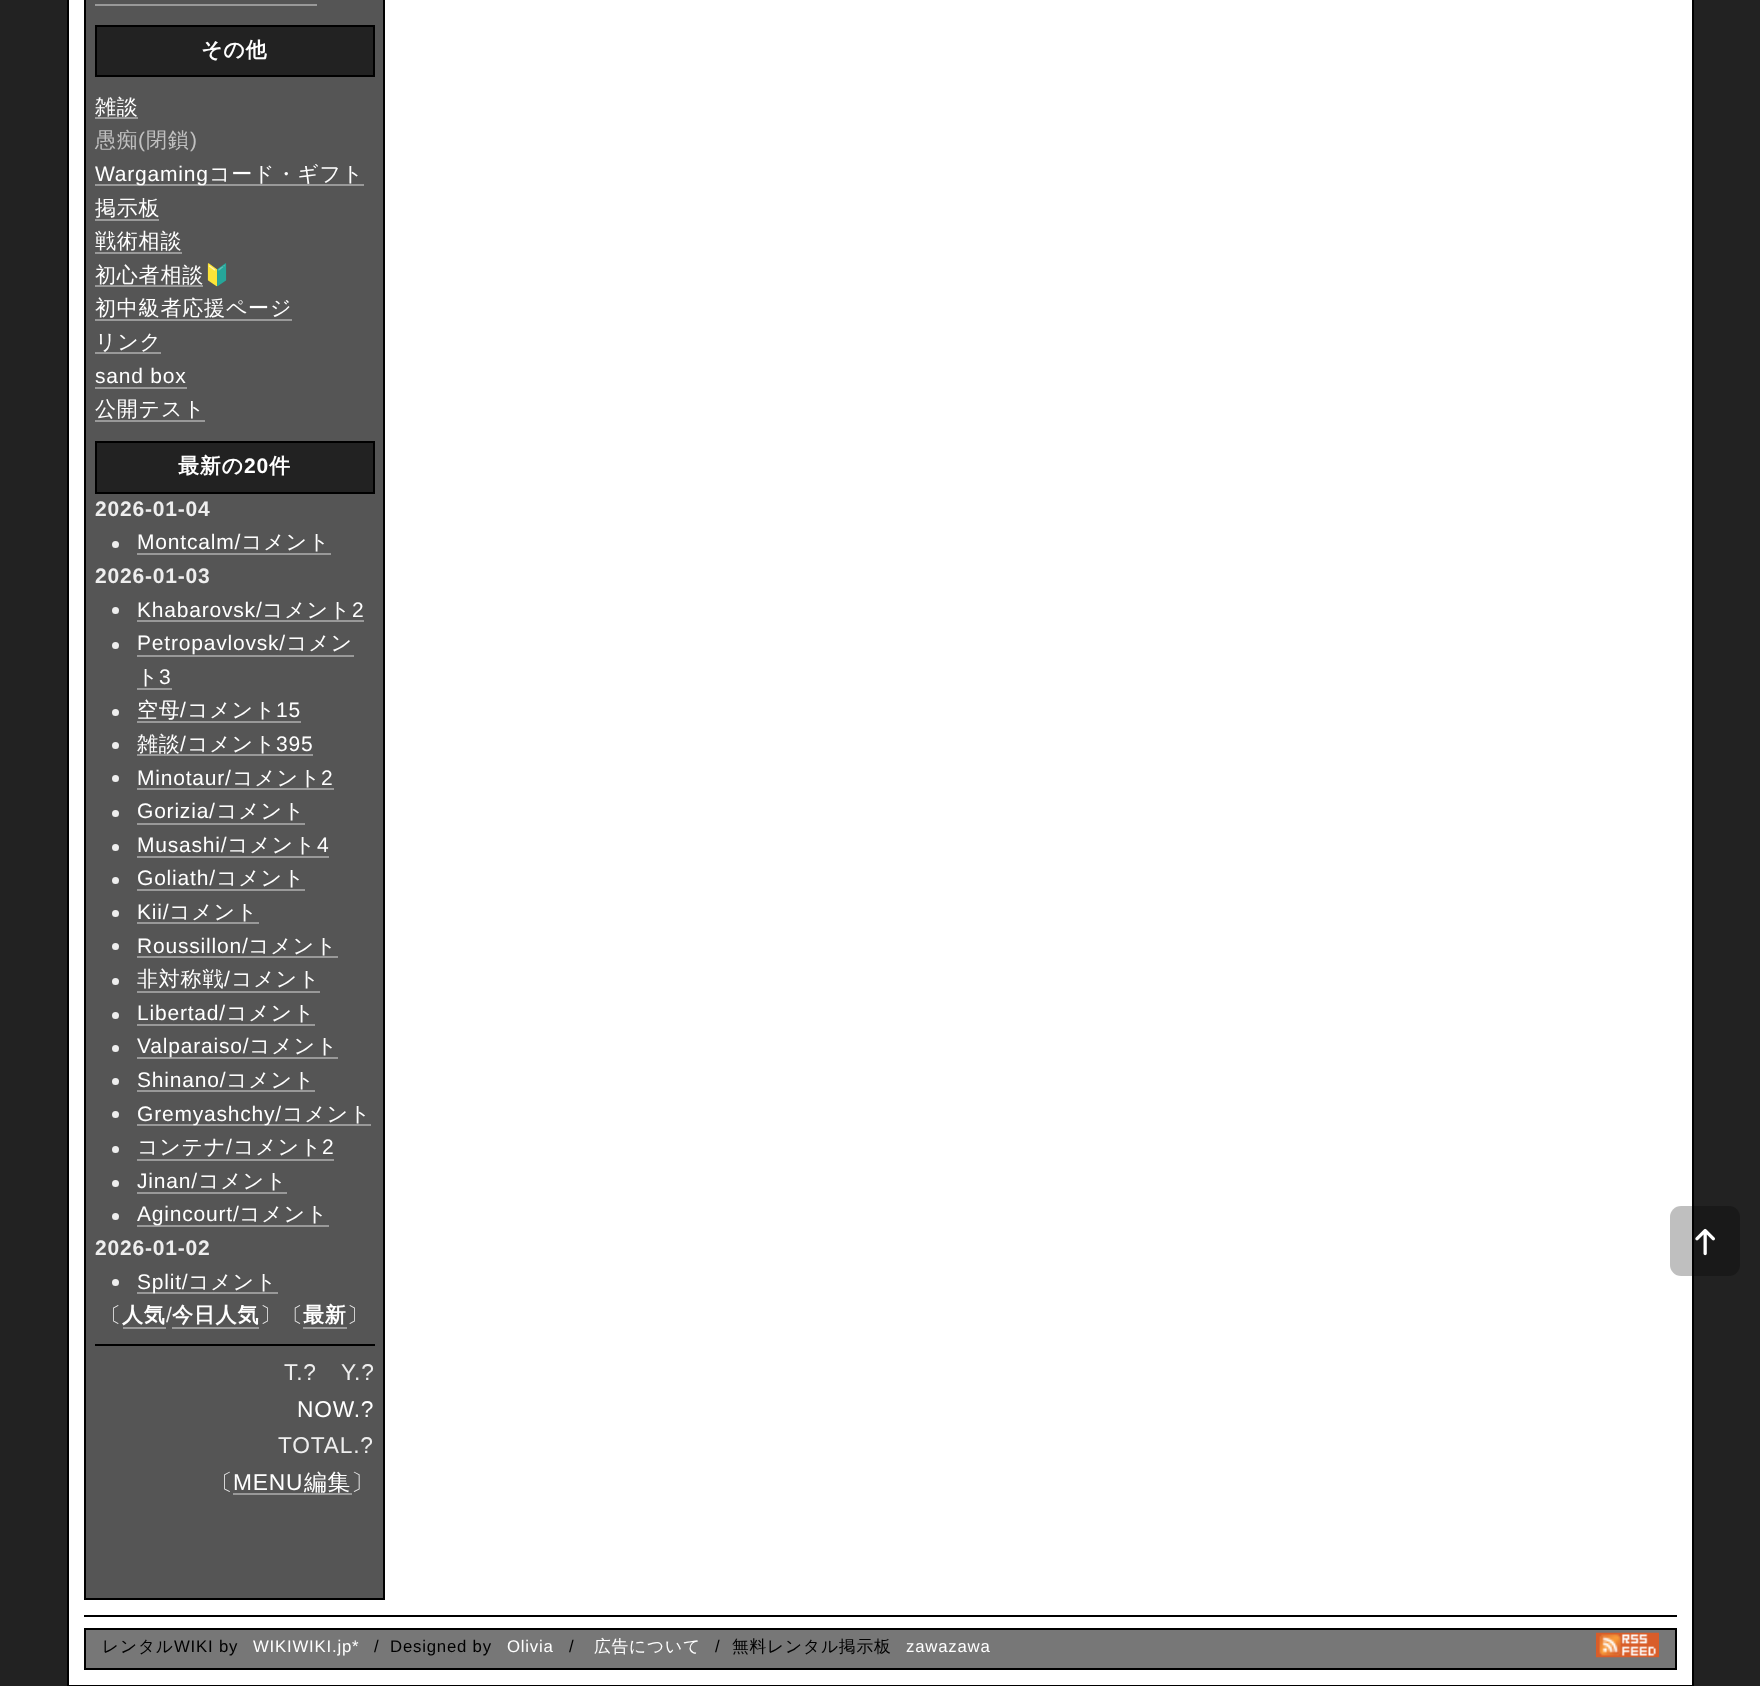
async function draw(canvas) {
	canvas.width = 1760;
	canvas.height = 1686;
	const c = canvas.getContext('2d');
	c.miterLimit = 4;
	c.fontKerning = 'normal';
	async function loadImage(src) {
		const img = new Image();
		img.src = src;
		await img.decode();
		return img;
	}

	c.fillStyle = '#222';
	c.fillRect(0, 0, 1760, 1686);
	c.fillStyle = '#fff';
	c.beginPath();
	c.rect(68, -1, 1625, 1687);
	c.fill();
	c.strokeStyle = '#000';
	c.lineWidth = 2;
	c.stroke();
	c.fillStyle = '#555';
	c.beginPath();
	c.rect(85, -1, 299, 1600);
	c.fill();
	c.stroke();
	c.fillStyle = '#999';
	c.fillRect(95, 4, 222, 2);
	c.fillStyle = '#222';
	c.beginPath();
	c.rect(96, 26, 278, 50);
	c.fill();
	c.stroke();
	c.letterSpacing = '0.8px';
	c.font = 'bold 21px WenQuanYi Zen Hei';
	c.fillStyle = '#fff';
	c.fillText('その他', 201, 57);
	c.fillStyle = '#999';
	c.fillRect(95, 117, 43, 2);
	c.font = '500 21px WenQuanYi Zen Hei';
	c.fillStyle = '#fff';
	c.fillText('雑談', 95, 114);
	c.fillStyle = '#c0c0c0';
	c.fillText('愚痴', 95, 147);
	c.font = '21px Liberation Sans';
	c.fillText('(', 138, 147);
	c.font = '500 21px WenQuanYi Zen Hei';
	c.fillText('閉鎖', 146, 147);
	c.font = '21px Liberation Sans';
	c.fillText(')', 190, 147);
	c.fillStyle = '#999';
	c.fillRect(95, 184, 269, 2);
	c.fillStyle = '#fff';
	c.fillText('Wargaming', 95, 181);
	c.font = '500 21px WenQuanYi Zen Hei';
	c.fillText('コード・ギフト', 209, 181);
	c.fillText('掲示板', 95, 215);
	c.fillStyle = '#999';
	c.fillRect(95, 219, 64, 2);
	c.fillStyle = '#fff';
	c.fillText('戦術相談', 95, 248);
	c.fillStyle = '#999';
	c.fillRect(95, 252, 87, 2);
	c.fillRect(95, 285, 108, 2);
	c.fillStyle = '#fff';
	c.fillText('初心者相談', 95, 282);
	c.font = '21px Noto Color Emoji';
	c.fillStyle = '#eee';
	c.fillText('🔰', 204, 282);
	c.font = '500 21px WenQuanYi Zen Hei';
	c.fillStyle = '#fff';
	c.fillText('初中級者応援ページ', 95, 315);
	c.fillStyle = '#999';
	c.fillRect(95, 319, 197, 2);
	c.fillStyle = '#fff';
	c.fillText('リンク', 95, 349);
	c.fillStyle = '#999';
	c.fillRect(95, 352, 66, 2);
	c.font = '21px Liberation Sans';
	c.fillStyle = '#fff';
	c.fillText('sand box', 95, 383);
	c.fillStyle = '#999';
	c.fillRect(95, 387, 92, 2);
	c.font = '500 21px WenQuanYi Zen Hei';
	c.fillStyle = '#fff';
	c.fillText('公開テスト', 95, 416);
	c.fillStyle = '#999';
	c.fillRect(95, 420, 110, 2);
	c.fillStyle = '#222';
	c.beginPath();
	c.rect(96, 442, 278, 51);
	c.fill();
	c.stroke();
	c.font = 'bold 21px WenQuanYi Zen Hei';
	c.fillStyle = '#fff';
	c.fillText('最新の', 178, 473);
	c.font = 'bold 21px Liberation Sans';
	c.fillText('20', 244, 473);
	c.font = 'bold 21px WenQuanYi Zen Hei';
	c.fillText('件', 269, 473);
	c.font = 'bold 21px Liberation Sans';
	c.fillStyle = '#eee';
	c.fillText('2026-01-04', 95, 516);
	c.beginPath();
	c.arc(115.5, 544.5, 3.5, 0, 2 * Math.PI);
	c.fill();
	c.font = '21px Liberation Sans';
	c.fillStyle = '#fff';
	c.fillText('Montcalm/', 137, 549);
	c.font = '500 21px WenQuanYi Zen Hei';
	c.fillText('コメント', 241, 549);
	c.fillStyle = '#999';
	c.fillRect(137, 553, 194, 2);
	c.font = 'bold 21px Liberation Sans';
	c.fillStyle = '#eee';
	c.fillText('2026-01-03', 95, 583);
	c.beginPath();
	c.arc(115.5, 610.5, 3.5, 0, 2 * Math.PI);
	c.fill();
	c.font = '21px Liberation Sans';
	c.fillStyle = '#fff';
	c.fillText('Khabarovsk/', 137, 617);
	c.font = '500 21px WenQuanYi Zen Hei';
	c.fillText('コメント', 262, 617);
	c.fillStyle = '#999';
	c.fillRect(137, 620, 227, 2);
	c.font = '21px Liberation Sans';
	c.fillStyle = '#fff';
	c.fillText('2', 352, 617);
	c.fillStyle = '#eee';
	c.beginPath();
	c.arc(115.5, 645.5, 3.5, 0, 2 * Math.PI);
	c.fill();
	c.fillStyle = '#fff';
	c.fillText('Petropavlovsk/', 137, 650);
	c.fillStyle = '#999';
	c.fillRect(137, 655, 217, 2);
	c.font = '500 21px WenQuanYi Zen Hei';
	c.fillStyle = '#fff';
	c.fillText('コメン', 286, 650);
	c.fillText('ト', 137, 684);
	c.fillStyle = '#999';
	c.fillRect(137, 688, 35, 2);
	c.font = '21px Liberation Sans';
	c.fillStyle = '#fff';
	c.fillText('3', 159, 684);
	c.fillStyle = '#eee';
	c.beginPath();
	c.arc(115.5, 712.5, 3.5, 0, 2 * Math.PI);
	c.fill();
	c.font = '500 21px WenQuanYi Zen Hei';
	c.fillStyle = '#fff';
	c.fillText('空母', 137, 717);
	c.font = '21px Liberation Sans';
	c.fillText('/', 180, 717);
	c.font = '500 21px WenQuanYi Zen Hei';
	c.fillText('コメント', 187, 717);
	c.fillStyle = '#999';
	c.fillRect(137, 721, 164, 2);
	c.font = '21px Liberation Sans';
	c.fillStyle = '#fff';
	c.fillText('15', 276, 717);
	c.fillStyle = '#eee';
	c.beginPath();
	c.arc(115.5, 745.5, 3.5, 0, 2 * Math.PI);
	c.fill();
	c.fillStyle = '#999';
	c.fillRect(137, 754, 176, 2);
	c.font = '500 21px WenQuanYi Zen Hei';
	c.fillStyle = '#fff';
	c.fillText('雑談', 137, 751);
	c.font = '21px Liberation Sans';
	c.fillText('/', 180, 751);
	c.font = '500 21px WenQuanYi Zen Hei';
	c.fillText('コメント', 187, 751);
	c.font = '21px Liberation Sans';
	c.fillText('395', 276, 751);
	c.fillStyle = '#eee';
	c.beginPath();
	c.arc(115.5, 778.5, 3.5, 0, 2 * Math.PI);
	c.fill();
	c.fillStyle = '#fff';
	c.fillText('Minotaur/', 137, 785);
	c.font = '500 21px WenQuanYi Zen Hei';
	c.fillText('コメント', 232, 785);
	c.fillStyle = '#999';
	c.fillRect(137, 788, 197, 2);
	c.font = '21px Liberation Sans';
	c.fillStyle = '#fff';
	c.fillText('2', 321, 785);
	c.fillStyle = '#eee';
	c.beginPath();
	c.arc(115.5, 813.5, 3.5, 0, 2 * Math.PI);
	c.fill();
	c.fillStyle = '#fff';
	c.fillText('Gorizia/', 137, 818);
	c.font = '500 21px WenQuanYi Zen Hei';
	c.fillText('コメント', 216, 818);
	c.fillStyle = '#999';
	c.fillRect(137, 823, 168, 2);
	c.fillStyle = '#eee';
	c.beginPath();
	c.arc(115.5, 847.5, 3.5, 0, 2 * Math.PI);
	c.fill();
	c.font = '21px Liberation Sans';
	c.fillStyle = '#fff';
	c.fillText('Musashi/', 137, 852);
	c.font = '500 21px WenQuanYi Zen Hei';
	c.fillText('コメント', 227, 852);
	c.fillStyle = '#999';
	c.fillRect(137, 856, 192, 2);
	c.font = '21px Liberation Sans';
	c.fillStyle = '#fff';
	c.fillText('4', 317, 852);
	c.fillStyle = '#eee';
	c.beginPath();
	c.arc(115.5, 880.5, 3.5, 0, 2 * Math.PI);
	c.fill();
	c.fillStyle = '#fff';
	c.fillText('Goliath/', 137, 885);
	c.font = '500 21px WenQuanYi Zen Hei';
	c.fillText('コメント', 216, 885);
	c.fillStyle = '#999';
	c.fillRect(137, 889, 168, 2);
	c.fillStyle = '#eee';
	c.beginPath();
	c.arc(115.5, 913.5, 3.5, 0, 2 * Math.PI);
	c.fill();
	c.font = '21px Liberation Sans';
	c.fillStyle = '#fff';
	c.fillText('Kii/', 137, 919);
	c.font = '500 21px WenQuanYi Zen Hei';
	c.fillText('コメント', 169, 919);
	c.fillStyle = '#999';
	c.fillRect(137, 922, 122, 2);
	c.fillStyle = '#eee';
	c.beginPath();
	c.arc(115.5, 946.5, 3.5, 0, 2 * Math.PI);
	c.fill();
	c.font = '21px Liberation Sans';
	c.fillStyle = '#fff';
	c.fillText('Roussillon/', 137, 953);
	c.font = '500 21px WenQuanYi Zen Hei';
	c.fillText('コメント', 248, 953);
	c.fillStyle = '#999';
	c.fillRect(137, 956, 201, 2);
	c.fillStyle = '#eee';
	c.beginPath();
	c.arc(115.5, 981.5, 3.5, 0, 2 * Math.PI);
	c.fill();
	c.fillStyle = '#fff';
	c.fillText('非対称戦', 137, 986);
	c.font = '21px Liberation Sans';
	c.fillText('/', 224, 986);
	c.font = '500 21px WenQuanYi Zen Hei';
	c.fillText('コメント', 231, 986);
	c.fillStyle = '#999';
	c.fillRect(137, 991, 183, 2);
	c.fillStyle = '#eee';
	c.beginPath();
	c.arc(115.5, 1015.5, 3.5, 0, 2 * Math.PI);
	c.fill();
	c.font = '21px Liberation Sans';
	c.fillStyle = '#fff';
	c.fillText('Libertad/', 137, 1020);
	c.font = '500 21px WenQuanYi Zen Hei';
	c.fillText('コメント', 226, 1020);
	c.fillStyle = '#999';
	c.fillRect(137, 1024, 178, 2);
	c.fillStyle = '#eee';
	c.beginPath();
	c.arc(115.5, 1048.5, 3.5, 0, 2 * Math.PI);
	c.fill();
	c.fillStyle = '#999';
	c.fillRect(137, 1057, 201, 2);
	c.font = '21px Liberation Sans';
	c.fillStyle = '#fff';
	c.fillText('Valparaiso/', 137, 1053);
	c.font = '500 21px WenQuanYi Zen Hei';
	c.fillText('コメント', 249, 1053);
	c.fillStyle = '#eee';
	c.beginPath();
	c.arc(115.5, 1081.5, 3.5, 0, 2 * Math.PI);
	c.fill();
	c.font = '21px Liberation Sans';
	c.fillStyle = '#fff';
	c.fillText('Shinano/', 137, 1087);
	c.font = '500 21px WenQuanYi Zen Hei';
	c.fillText('コメント', 226, 1087);
	c.fillStyle = '#999';
	c.fillRect(137, 1090, 178, 2);
	c.fillStyle = '#eee';
	c.beginPath();
	c.arc(115.5, 1114.5, 3.5, 0, 2 * Math.PI);
	c.fill();
	c.fillStyle = '#999';
	c.fillRect(137, 1124, 234, 2);
	c.font = '21px Liberation Sans';
	c.fillStyle = '#fff';
	c.fillText('Gremyashchy/', 137, 1121);
	c.font = '500 21px WenQuanYi Zen Hei';
	c.fillText('コメント', 282, 1121);
	c.fillStyle = '#eee';
	c.beginPath();
	c.arc(115.5, 1149.5, 3.5, 0, 2 * Math.PI);
	c.fill();
	c.fillStyle = '#fff';
	c.fillText('コンテナ', 137, 1154);
	c.fillStyle = '#999';
	c.fillRect(137, 1159, 197, 2);
	c.font = '21px Liberation Sans';
	c.fillStyle = '#fff';
	c.fillText('/', 226, 1154);
	c.font = '500 21px WenQuanYi Zen Hei';
	c.fillText('コメント', 233, 1154);
	c.font = '21px Liberation Sans';
	c.fillText('2', 322, 1154);
	c.fillStyle = '#eee';
	c.beginPath();
	c.arc(115.5, 1183.5, 3.5, 0, 2 * Math.PI);
	c.fill();
	c.fillStyle = '#fff';
	c.fillText('Jinan/', 137, 1188);
	c.font = '500 21px WenQuanYi Zen Hei';
	c.fillText('コメント', 198, 1188);
	c.fillStyle = '#999';
	c.fillRect(137, 1192, 150, 2);
	c.fillStyle = '#eee';
	c.beginPath();
	c.arc(115.5, 1216.5, 3.5, 0, 2 * Math.PI);
	c.fill();
	c.fillStyle = '#999';
	c.fillRect(137, 1225, 192, 2);
	c.font = '21px Liberation Sans';
	c.fillStyle = '#fff';
	c.fillText('Agincourt/', 137, 1221);
	c.font = '500 21px WenQuanYi Zen Hei';
	c.fillText('コメント', 239, 1221);
	c.font = 'bold 21px Liberation Sans';
	c.fillStyle = '#eee';
	c.fillText('2026-01-02', 95, 1255);
	c.beginPath();
	c.arc(115.5, 1282.5, 3.5, 0, 2 * Math.PI);
	c.fill();
	c.fillStyle = '#999';
	c.fillRect(137, 1292, 141, 2);
	c.font = '21px Liberation Sans';
	c.fillStyle = '#fff';
	c.fillText('Split/', 137, 1289);
	c.font = '500 21px WenQuanYi Zen Hei';
	c.fillText('コメント', 188, 1289);
	c.fillStyle = '#eee';
	c.fillText('〔', 100, 1322);
	c.font = 'bold 21px WenQuanYi Zen Hei';
	c.fillStyle = '#fff';
	c.fillText('人気', 122, 1322);
	c.fillStyle = '#999';
	c.fillRect(123, 1327, 43, 2);
	c.font = '21px Liberation Sans';
	c.fillStyle = '#eee';
	c.fillText('/', 166, 1322);
	c.font = 'bold 21px WenQuanYi Zen Hei';
	c.fillStyle = '#fff';
	c.fillText('今日人気', 172, 1322);
	c.fillStyle = '#999';
	c.fillRect(172, 1327, 87, 2);
	c.font = '500 21px WenQuanYi Zen Hei';
	c.fillStyle = '#eee';
	c.fillText('〕〔', 260, 1322);
	c.font = 'bold 21px WenQuanYi Zen Hei';
	c.fillStyle = '#fff';
	c.fillText('最新', 303, 1322);
	c.fillStyle = '#999';
	c.fillRect(303, 1327, 44, 2);
	c.font = '500 21px WenQuanYi Zen Hei';
	c.fillStyle = '#eee';
	c.fillText('〕', 347, 1322);
	c.fillStyle = '#000';
	c.fillRect(95, 1344, 280, 2);
	c.font = '22.75px Liberation Sans';
	c.fillStyle = '#eee';
	c.fillText('T.?', 284, 1380);
	c.fillText('Y.?', 341, 1380);
	c.fillStyle = '#fff';
	c.fillText('NOW.?', 297, 1417);
	c.fillStyle = '#eee';
	c.fillText('TOTAL.?', 278, 1453);
	c.font = '500 22.75px WenQuanYi Zen Hei';
	c.fillText('〔', 210, 1490);
	c.font = '22.75px Liberation Sans';
	c.fillStyle = '#fff';
	c.fillText('MENU', 233, 1490);
	c.fillStyle = '#999';
	c.fillRect(233, 1493, 119, 2);
	c.font = '500 22.75px WenQuanYi Zen Hei';
	c.fillStyle = '#fff';
	c.fillText('編集', 304, 1490);
	c.fillStyle = '#eee';
	c.fillText('〕', 351, 1490);
	c.fillStyle = '#00000040';
	c.beginPath();
	c.roundRect(1670, 1206, 70, 70, 11);
	c.fill();
	c.drawImage(await loadImage('img1.png'), 1695, 1228, 20, 28);
	c.fillStyle = '#000';
	c.fillRect(84, 1615, 1593, 2);
	c.fillStyle = '#777';
	c.beginPath();
	c.rect(85, 1629, 1591, 40);
	c.fill();
	c.stroke();
	c.font = '500 16.75px WenQuanYi Zen Hei';
	c.fillStyle = '#000';
	c.fillText('レンタル', 102, 1652);
	c.font = '16.75px Liberation Sans';
	c.fillText('WIKI by', 174, 1652);
	c.fillStyle = '#fff';
	c.fillText('WIKIWIKI.jp*', 253, 1652);
	c.fillStyle = '#000';
	c.fillText('/', 374, 1652);
	c.fillText('Designed by', 390, 1652);
	c.fillStyle = '#fff';
	c.fillText('Olivia', 507, 1652);
	c.fillStyle = '#000';
	c.fillText('/', 569, 1652);
	c.font = '500 16.75px WenQuanYi Zen Hei';
	c.fillStyle = '#fff';
	c.fillText('広告について', 594, 1652);
	c.font = '16.75px Liberation Sans';
	c.fillStyle = '#000';
	c.fillText('/', 715, 1652);
	c.font = '500 16.75px WenQuanYi Zen Hei';
	c.fillText('無料レンタル掲示板', 732, 1652);
	c.font = '16.75px Liberation Sans';
	c.fillStyle = '#fff';
	c.fillText('zawazawa', 906, 1652);
	c.drawImage(await loadImage('img2.png'), 1596, 1632, 63, 26);
}

draw(document.querySelector('canvas'));
